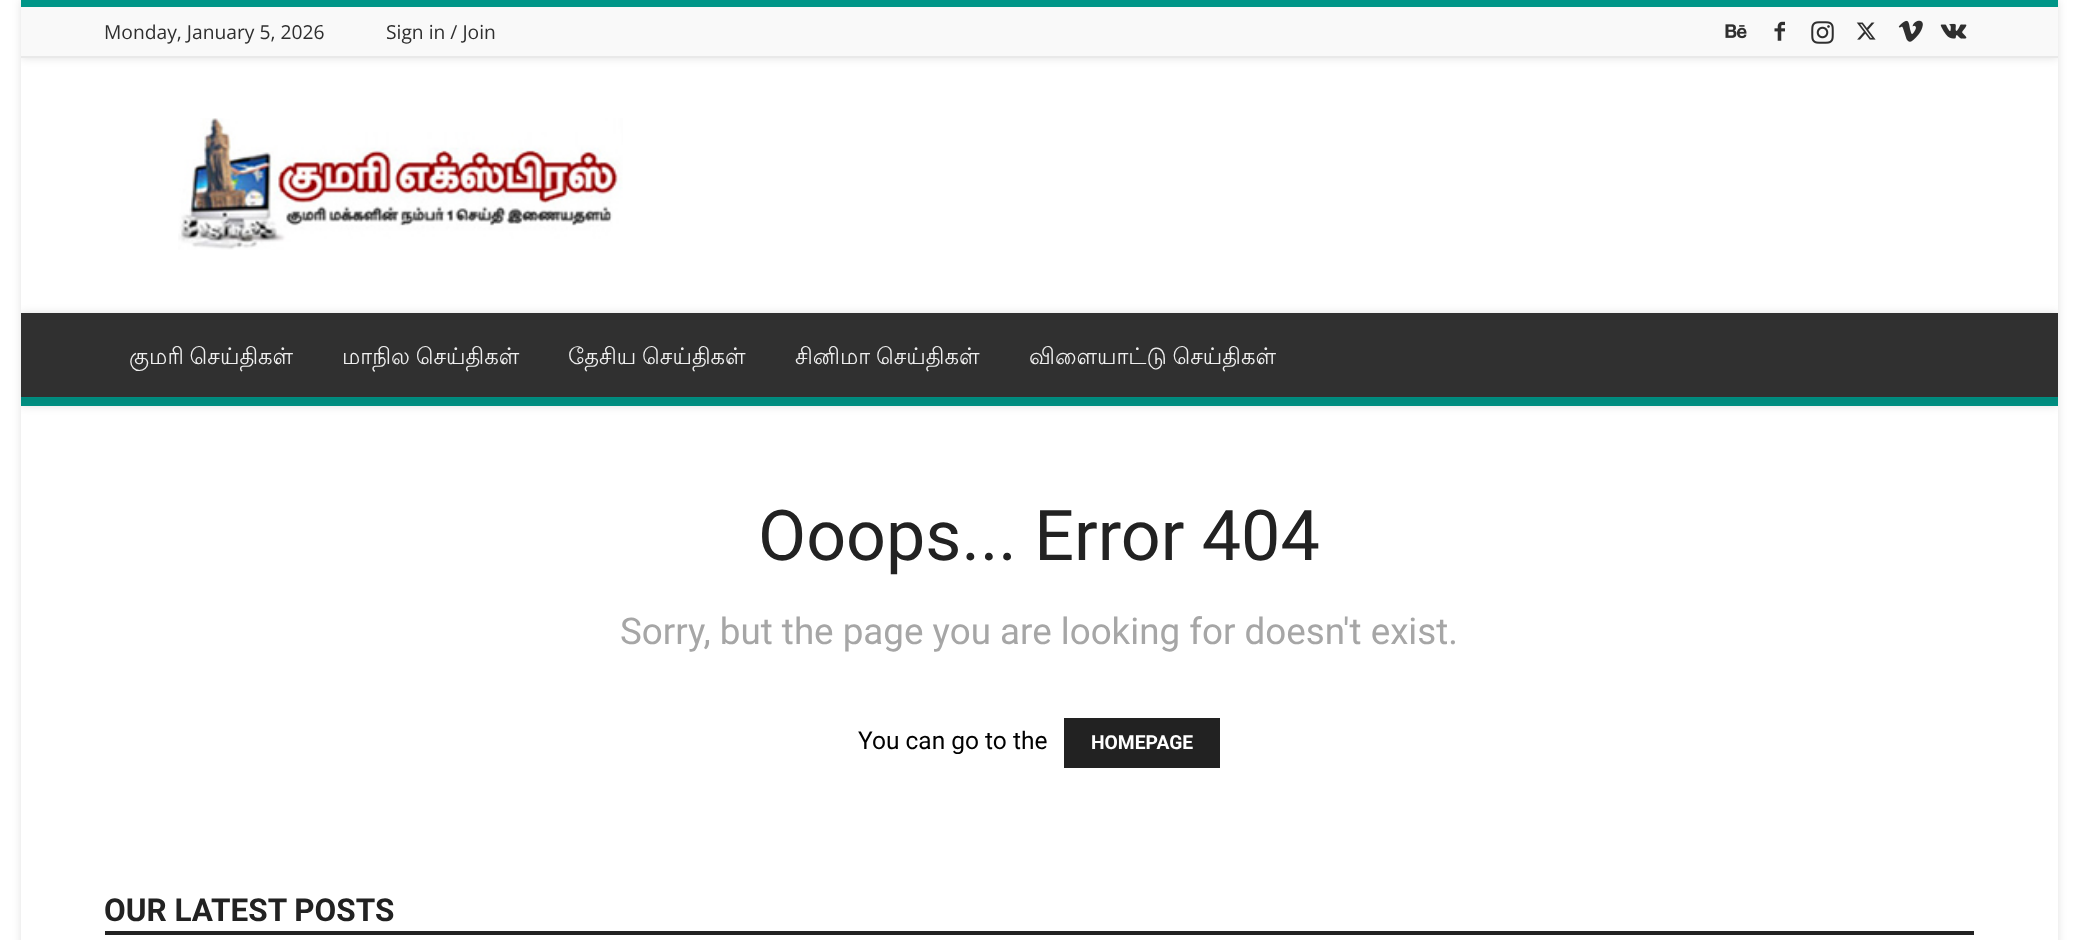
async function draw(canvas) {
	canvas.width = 2077;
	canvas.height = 940;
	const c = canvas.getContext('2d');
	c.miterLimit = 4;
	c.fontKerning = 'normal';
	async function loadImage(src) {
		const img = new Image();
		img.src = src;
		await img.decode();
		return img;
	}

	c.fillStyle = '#fff';
	c.fillRect(0, 0, 2077, 940);
	c.fillStyle = '#0000001f';
	c.filter = 'blur(4.5px)';
	c.beginPath();
	c.rect(21, 0, 2037, 58);
	c.fill();
	c.filter = 'none';
	c.save();
	c.beginPath();
	c.moveTo(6, 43);
	c.lineTo(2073, 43);
	c.lineTo(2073, 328);
	c.lineTo(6, 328);
	c.closePath();
	c.moveTo(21, 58);
	c.lineTo(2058, 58);
	c.lineTo(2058, 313);
	c.lineTo(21, 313);
	c.closePath();
	c.clip('evenodd');
	c.filter = 'blur(4.5px)';
	c.beginPath();
	c.rect(21, 58, 2037, 255);
	c.fill();
	c.filter = 'none';
	c.restore();
	for (const [x, y, w, h, color] of [
		[21, 7, 2037, 49, '#f9f9f9'],
		[21, 0, 2037, 7, '#009688'],
		[21, 56, 2037, 2, '#e9e9e9'],
	]) {
		c.fillStyle = color;
		c.fillRect(x, y, w, h);
	}
	c.font = '19.25px Open Sans';
	c.fillStyle = '#2f2f2f';
	c.fillText('Monday, January 5, 2026', 104, 39);
	c.fillText('Sign in / Join', 386, 39);
	c.drawImage(await loadImage('img1.png'), 1725, 24, 22, 15);
	c.drawImage(await loadImage('img2.png'), 1774, 21, 11, 20);
	c.drawImage(await loadImage('img3.png'), 1811, 21, 23, 23);
	c.drawImage(await loadImage('img4.png'), 1856, 22, 20, 18);
	c.drawImage(await loadImage('img5.png'), 1898, 20, 25, 22);
	c.drawImage(await loadImage('img6.png'), 1940, 23, 27, 16);
	c.drawImage(await loadImage('img7.png'), 178, 118, 445, 132);
	c.fillStyle = '#0000001f';
	c.filter = 'blur(4.5px)';
	c.beginPath();
	c.rect(21, 313, 2037, 93);
	c.fill();
	c.filter = 'none';
	c.save();
	c.beginPath();
	c.moveTo(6, 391);
	c.lineTo(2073, 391);
	c.lineTo(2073, 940);
	c.lineTo(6, 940);
	c.closePath();
	c.moveTo(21, 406);
	c.lineTo(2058, 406);
	c.lineTo(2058, 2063);
	c.lineTo(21, 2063);
	c.closePath();
	c.clip('evenodd');
	c.filter = 'blur(4.5px)';
	c.beginPath();
	c.rect(21, 406, 2037, 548);
	c.fill();
	c.filter = 'none';
	c.restore();
	c.fillStyle = '#303030';
	c.fillRect(21, 313, 2037, 84);
	c.wordSpacing = '-1px';
	c.font = '22.75px Lohit Tamil';
	c.fillStyle = '#efefef';
	for (const [text, x, y] of [
		['குமரி செய்திகள்', 129, 364],
		['மாநில செய்திகள்', 342, 364],
		['தேசிய செய்திகள்', 568, 364],
		['சினிமா செய்திகள்', 795, 364],
		['விளையாட்டு செய்திகள்', 1029, 364],
	]) {
		c.fillText(text, x, y);
	}
	c.fillStyle = '#009688';
	c.fillRect(21, 397, 2037, 9);
	c.drawImage(await loadImage('img8.png'), 21, 397, 2037, 9);
	c.wordSpacing = '0px';
	c.font = '70px Roboto';
	c.fillStyle = '#222';
	c.fillText('Ooops... Error 404', 758, 560);
	c.font = '36.75px Roboto';
	c.fillStyle = '#a6a6a6';
	c.fillText('Sorry, but the page you are looking for doesn\'t exist.', 620, 644);
	c.font = '24.5px Roboto';
	c.fillStyle = '#000';
	c.fillText('You can go to the', 858, 749);
	c.fillStyle = '#222';
	c.fillRect(1064, 718, 156, 50);
	c.font = 'bold 19.25px Roboto';
	c.fillStyle = '#fff';
	c.fillText('HOMEPAGE', 1091, 749);
	c.fillStyle = '#222';
	c.fillRect(105, 931, 1869, 4);
	c.font = 'bold 31.5px Roboto';
	c.fillText('OUR LATEST POSTS', 104, 921);
}

draw(document.querySelector('canvas'));
